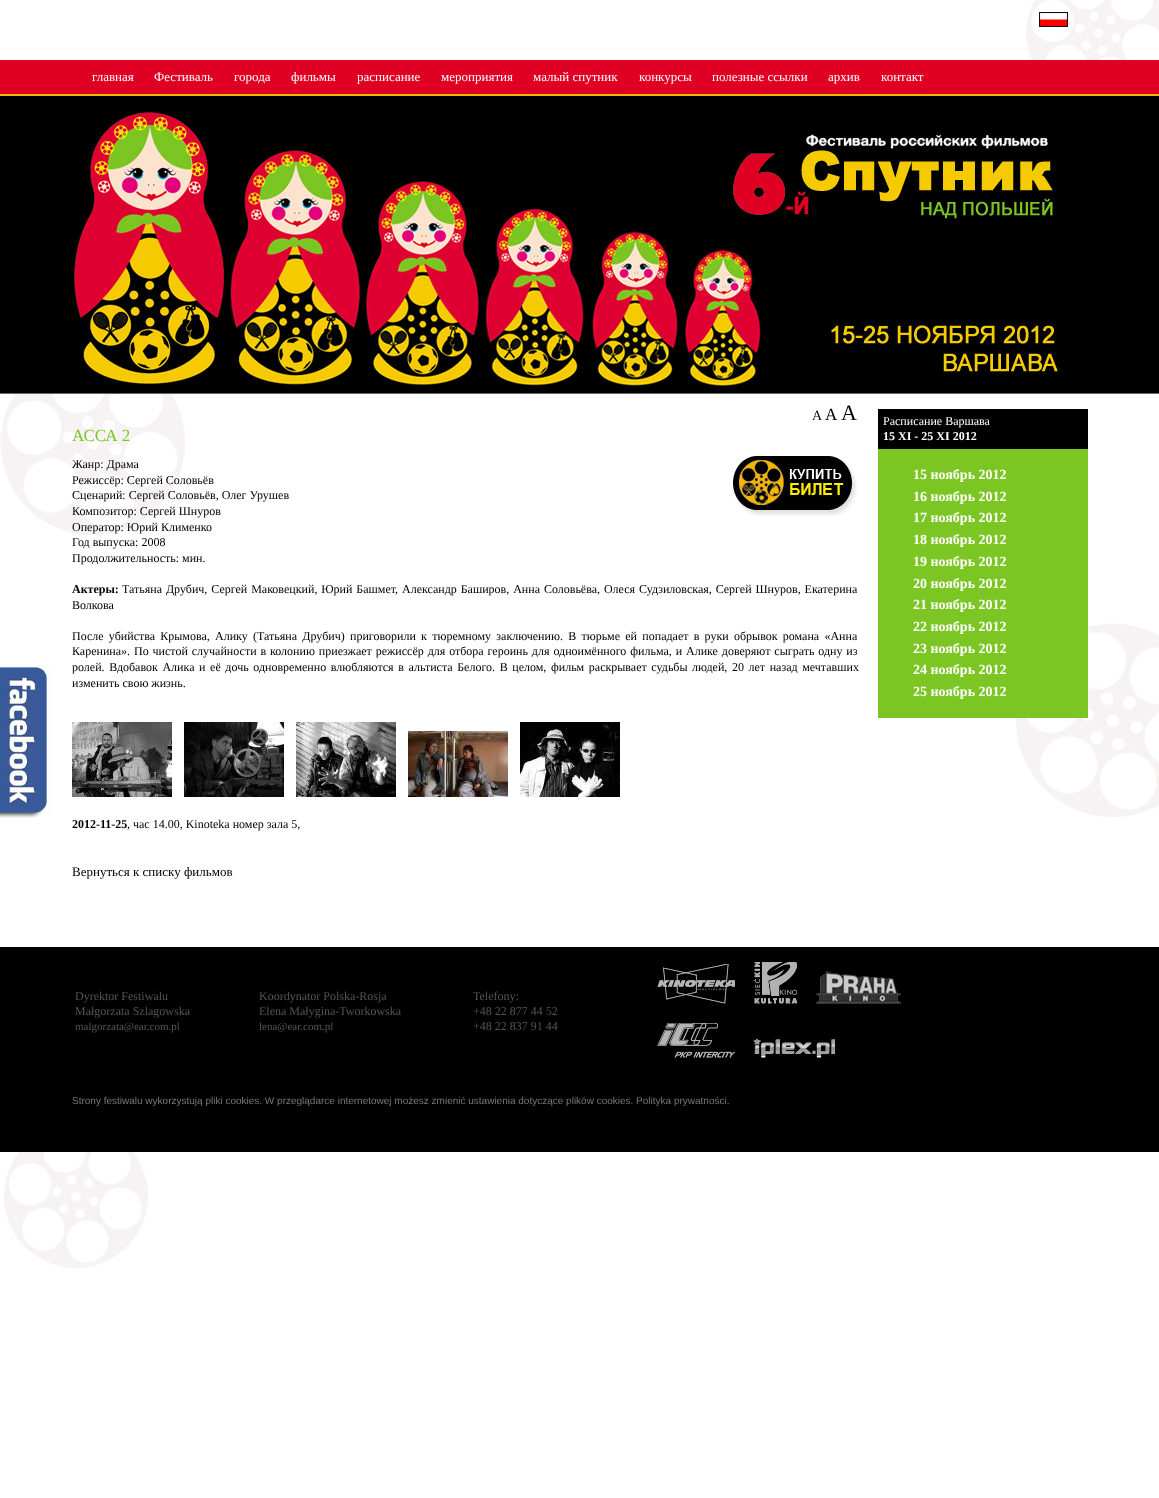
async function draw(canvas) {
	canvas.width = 1159;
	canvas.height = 1498;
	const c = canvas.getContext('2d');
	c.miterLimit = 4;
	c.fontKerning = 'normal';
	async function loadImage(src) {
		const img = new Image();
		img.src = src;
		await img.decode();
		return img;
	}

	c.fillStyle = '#fff';
	c.fillRect(0, 0, 1159, 1498);
	c.drawImage(await loadImage('img1.png'), 0, 0, 1159, 1268);
	c.drawImage(await loadImage('img2.png'), 1039, 12, 29, 15);
	c.fillStyle = '#df0024';
	c.fillRect(0, 60, 1159, 34);
	c.font = '13px Liberation Serif';
	c.fillStyle = '#fff';
	for (const [text, x, y] of [
		['главная', 92, 81],
		['Фестиваль', 154, 81],
		['города', 234, 81],
		['фильмы', 291, 81],
		['расписание', 357, 81],
		['мероприятия', 441, 81],
		['малый cпутник', 533, 81],
		['конкурсы', 639, 81],
		['полезные ссылки', 712, 81],
		['архив', 828, 81],
		['контакт', 881, 81],
	]) {
		c.fillText(text, x, y);
	}
	c.drawImage(await loadImage('img3.png'), 0, 94, 1159, 300);
	c.drawImage(await loadImage('img4.png'), 74, 102, 984, 292);
	c.drawImage(await loadImage('img5.png'), 0, 667, 50, 151);
	c.font = '14px Liberation Serif';
	c.fillStyle = '#000';
	c.fillText('A', 812, 420);
	c.font = '17px Liberation Serif';
	c.fillText('A', 825, 420);
	c.font = '22px Liberation Serif';
	c.fillText('A', 841, 420);
	c.font = '17px Liberation Serif';
	c.fillStyle = '#7cc623';
	c.fillText('АССА 2', 72, 441);
	c.font = '12px Liberation Serif';
	c.fillStyle = '#000';
	c.fillText('Жанр: Драма', 72, 468);
	c.drawImage(await loadImage('img6.png'), 733, 456, 124, 60);
	for (const [text, x, y] of [
		['Режиссёр: Сергей Соловьёв', 72, 484],
		['Сценарий: Сергей Соловьёв, Олег Урушев', 72, 499],
		['Композитор: Сергей Шнуров', 72, 515],
		['Оператор: Юрий Клименко', 72, 531],
		['Год выпуска: 2008', 72, 546],
		['Продолжительность: мин.', 72, 562],
	]) {
		c.fillText(text, x, y);
	}
	c.font = 'bold 12px Liberation Serif';
	c.fillText('Актеры:', 72, 593);
	c.wordSpacing = '0.9px';
	c.font = '12px Liberation Serif';
	c.fillText('Татьяна Друбич, Сергей Маковецкий, Юрий Башмет, Александр Баширов, Анна Соловьёва, Олеся Судзиловская, Сергей Шнуров, Екатерина', 122, 593);
	c.wordSpacing = '0px';
	c.fillText('Волкова', 72, 609);
	c.wordSpacing = '2.25px';
	c.fillText('После убийства Крымова, Алику (Татьяна Друбич) приговорили к тюремному заключению. В тюрьме ей попадает в руки обрывок романа «Анна', 72, 640);
	c.wordSpacing = '0.9px';
	c.fillText('Каренина». По чистой случайности в колонию приезжает режиссёр для отбора героинь для одноимённого фильма, и Алике доверяют сыграть одну из', 72, 655);
	c.wordSpacing = '1.6px';
	c.fillText('ролей. Вдобавок Алика и её дочь одновременно влюбляются в альтиста Белого. В целом, фильм раскрывает судьбы людей, 20 лет назад мечтавших', 72, 671);
	c.wordSpacing = '0px';
	c.fillText('изменить свою жизнь.', 72, 687);
	c.drawImage(await loadImage('img7.png'), 72, 722, 100, 75);
	c.drawImage(await loadImage('img8.png'), 184, 722, 100, 75);
	c.drawImage(await loadImage('img9.png'), 296, 722, 100, 75);
	c.drawImage(await loadImage('img10.png'), 408, 731, 100, 66);
	c.drawImage(await loadImage('img11.png'), 520, 722, 100, 75);
	c.font = 'bold 12px Liberation Serif';
	c.fillText('2012-11-25', 72, 828);
	c.font = '12px Liberation Serif';
	c.fillText(', час 14.00, Kinoteka номер зала 5,', 127, 828);
	c.font = '13px Liberation Serif';
	c.fillText('Вернуться к списку фильмов', 72, 876);
	c.fillRect(878, 409, 210, 40);
	c.font = '12px Liberation Serif';
	c.fillStyle = '#fff';
	c.fillText('Pаcписание Варшава', 883, 425);
	c.font = 'bold 12px Liberation Serif';
	c.fillText('15 XI - 25 XI 2012', 883, 440);
	c.fillStyle = '#7cc623';
	c.fillRect(878, 449, 210, 269);
	c.font = 'bold 14px Liberation Serif';
	c.fillStyle = '#fff';
	for (const [text, x, y] of [
		['15 ноябрь 2012', 913, 479],
		['16 ноябрь 2012', 913, 501],
		['17 ноябрь 2012', 913, 522],
		['18 ноябрь 2012', 913, 544],
		['19 ноябрь 2012', 913, 566],
		['20 ноябрь 2012', 913, 588],
		['21 ноябрь 2012', 913, 609],
		['22 ноябрь 2012', 913, 631],
		['23 ноябрь 2012', 913, 653],
		['24 ноябрь 2012', 913, 674],
		['25 ноябрь 2012', 913, 696],
	]) {
		c.fillText(text, x, y);
	}
	c.fillStyle = '#000';
	c.fillRect(0, 947, 1159, 205);
	c.font = '12px Liberation Serif';
	c.fillStyle = '#555';
	c.fillText('Dyrektor Festiwalu', 75, 1000);
	c.fillText('Małgorzata Szlagowska', 75, 1015);
	c.font = '11px Liberation Serif';
	c.fillText('malgorzata@ear.com.pl', 75, 1030);
	c.font = '12px Liberation Serif';
	c.fillText('Koordynator Polska-Rosja', 259, 1000);
	c.fillText('Elena Małygina-Tworkowska', 259, 1015);
	c.font = '11px Liberation Serif';
	c.fillText('lena@ear.com.pl', 259, 1030);
	c.font = '12px Liberation Serif';
	for (const [text, x, y] of [
		['Telefony:', 473, 1000],
		['+48 22 877 44 52', 473, 1015],
		['+48 22 837 91 44', 473, 1030],
	]) {
		c.fillText(text, x, y);
	}
	c.drawImage(await loadImage('img12.png'), 657, 964, 78, 40);
	c.drawImage(await loadImage('img13.png'), 753, 962, 44, 42);
	c.drawImage(await loadImage('img14.png'), 816, 971, 85, 33);
	c.drawImage(await loadImage('img15.png'), 657, 1023, 78, 35);
	c.drawImage(await loadImage('img16.png'), 753, 1039, 82, 19);
	c.font = '10px Liberation Sans';
	c.fillStyle = '#777';
	c.fillText('Strony festiwalu wykorzystują pliki cookies. W przeglądarce internetowej możesz zmienić ustawienia dotyczące plików cookies. Polityka prywatności.', 72, 1104);
}

draw(document.querySelector('canvas'));
